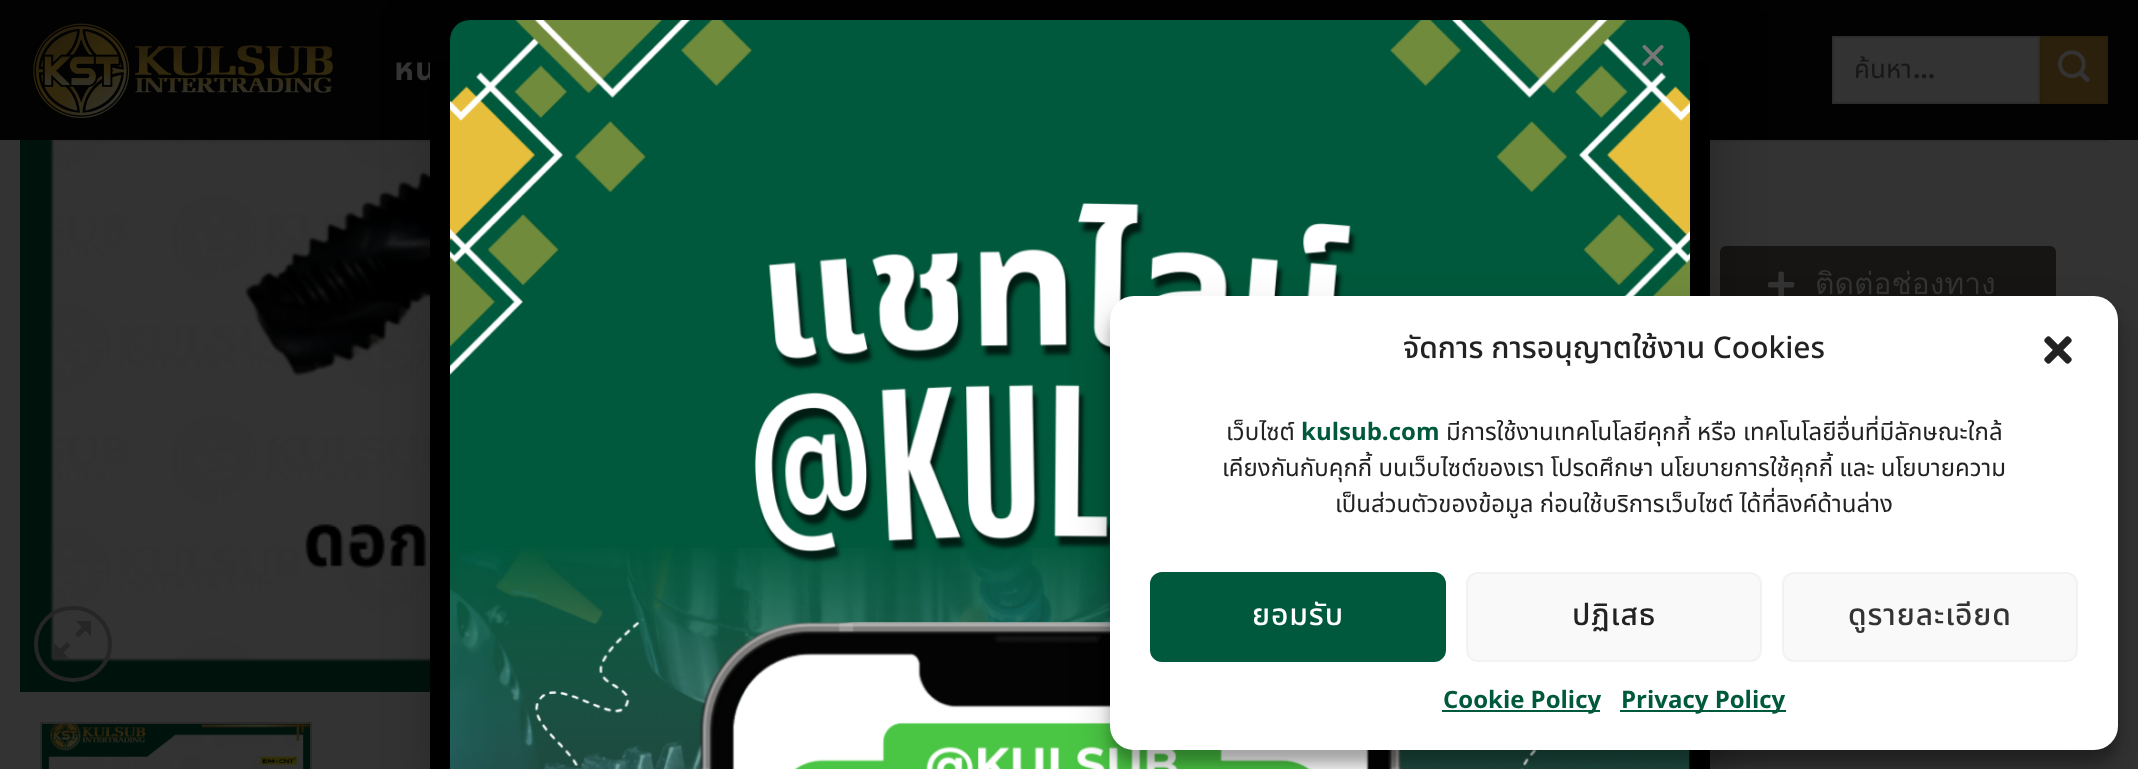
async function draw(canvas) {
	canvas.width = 2138;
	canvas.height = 769;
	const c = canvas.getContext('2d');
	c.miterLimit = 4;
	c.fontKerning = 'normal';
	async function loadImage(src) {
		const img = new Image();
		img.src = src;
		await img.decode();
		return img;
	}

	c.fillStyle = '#333';
	c.fillRect(0, 0, 2138, 769);
	c.fillStyle = '#020202';
	c.fillRect(0, 0, 2138, 140);
	c.drawImage(await loadImage('img5.png'), 20, 140, 410, 552);
	c.fillStyle = '#1818181a';
	c.fillRect(54, 140, 2054, 2);
	c.fillStyle = '#161513';
	c.beginPath();
	c.roundRect(1720, 246, 336, 108, 6);
	c.fill();
	c.drawImage(await loadImage('img7.png'), 1768, 271, 27, 25);
	c.fillStyle = '#00000033';
	c.filter = 'blur(23px)';
	c.beginPath();
	c.rect(428, 10, 1292, 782);
	c.fill();
	c.filter = 'none';
	c.letterSpacing = '1px';
	c.font = 'bold 32px Noto Sans Thai';
	c.fillStyle = '#333';
	c.fillText('หน', 394, 80);
	c.fillStyle = '#000';
	c.fillRect(430, 62, 1280, 707);
	c.drawImage(await loadImage('img1.png'), 450, 20, 1240, 749);
	c.drawImage(await loadImage('img2.png'), 1642, 44, 22, 22);
	c.drawImage(await loadImage('img3.png'), 33, 23, 300, 95);
	c.fillStyle = '#333';
	c.beginPath();
	c.rect(1833, 37, 206, 66);
	c.fill();
	c.strokeStyle = '#2c2c2c';
	c.lineWidth = 2;
	c.stroke();
	c.save();
	c.beginPath();
	c.rect(1854, 50, 156, 40);
	c.clip();
	c.letterSpacing = '0px';
	c.font = '26px Noto Sans Thai';
	c.fillStyle = '#171717';
	c.fillText('ค้นหา', 1854, 78);
	c.restore();
	c.letterSpacing = '0px';
	c.font = 'bold 26px "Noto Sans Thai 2"';
	c.fillStyle = '#171717';
	c.fillText('…', 1913, 78);
	c.fillStyle = '#2a200c';
	c.beginPath();
	c.rect(2041, 37, 66, 66);
	c.fill();
	c.strokeStyle = '#281f0b';
	c.stroke();
	c.drawImage(await loadImage('img4.png'), 2058, 50, 32, 32);
	c.beginPath();
	c.roundRect(36, 608, 74, 72, 36);
	c.strokeStyle = '#262626';
	c.lineWidth = 4;
	c.stroke();
	c.fillStyle = '#262626';
	c.beginPath();
	c.moveTo(91, 621);
	c.lineTo(91, 636);
	c.lineTo(85.5, 630.5);
	c.lineTo(78.5, 637.5);
	c.lineTo(75, 634);
	c.lineTo(82, 627);
	c.lineTo(76, 621);
	c.closePath();
	c.moveTo(70.5, 645.5);
	c.lineTo(63.5, 652.5);
	c.lineTo(69, 658.5);
	c.lineTo(54, 658.5);
	c.lineTo(54, 643);
	c.lineTo(60, 649);
	c.lineTo(67, 642);
	c.closePath();
	c.fill();
	c.strokeStyle = '#292929';
	c.lineWidth = 2;
	c.strokeRect(41, 723, 270, 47);
	c.drawImage(await loadImage('img6.png'), 42, 724, 268, 45);
	c.font = '30px Loma';
	c.fillStyle = '#333';
	c.fillText('ติดต่อช่องทาง', 1815, 294);
	c.fillStyle = '#0000003b';
	c.filter = 'blur(6px)';
	c.beginPath();
	c.roundRect(1110, 308, 1008, 454, 24);
	c.fill();
	c.filter = 'none';
	c.fillStyle = '#00000030';
	c.filter = 'blur(20px)';
	c.beginPath();
	c.roundRect(1110, 316, 1008, 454, 24);
	c.fill();
	c.filter = 'none';
	c.fillStyle = '#fff';
	c.beginPath();
	c.roundRect(1110, 296, 1008, 454, 24);
	c.fill();
	c.font = '500 30px Noto Sans Thai';
	c.fillStyle = '#222';
	c.fillText('จัดการ การอนุญาตใช้งาน Cookies', 1403, 358);
	c.drawImage(await loadImage('img8.png'), 2044, 336, 28, 28);
	c.font = '24px Noto Sans Thai';
	c.fillText('เว็บไซต์', 1226, 440);
	c.font = 'bold 24px "Noto Sans Thai 2"';
	c.fillStyle = '#00593c';
	c.fillText('kulsub.com', 1301, 440);
	c.font = '24px Noto Sans Thai';
	c.fillStyle = '#222';
	for (const [text, x, y] of [
		['มีการใช้งานเทคโนโลยีคุกกี้ หรือ เทคโนโลยีอื่นที่มีลักษณะใกล้', 1446, 440],
		['เคียงกันกับคุกกี้ บนเว็บไซต์ของเรา โปรดศึกษา นโยบายการใช้คุกกี้ และ นโยบายความ', 1222, 476],
		['เป็นส่วนตัวของข้อมูล ก่อนใช้บริการเว็บไซต์ ได้ที่ลิงค์ด้านล่าง', 1335, 512],
	]) {
		c.fillText(text, x, y);
	}
	c.fillStyle = '#00593c';
	c.beginPath();
	c.roundRect(1151, 573, 294, 88, 11);
	c.fill();
	c.strokeStyle = '#00593c';
	c.stroke();
	c.letterSpacing = '0.9px';
	c.font = '500 30px Noto Sans Thai';
	c.fillStyle = '#fff';
	c.fillText('ยอมรับ', 1252, 625);
	c.fillStyle = '#f9f9f9';
	c.beginPath();
	c.roundRect(1467, 573, 294, 88, 11);
	c.fill();
	c.strokeStyle = '#f2f2f2';
	c.stroke();
	c.fillStyle = '#222';
	c.fillText('ปฏิเสธ', 1572, 625);
	c.fillStyle = '#f9f9f9';
	c.beginPath();
	c.roundRect(1783, 573, 294, 88, 11);
	c.fill();
	c.stroke();
	c.fillStyle = '#333';
	c.fillText('ดูรายละเอียด', 1848, 625);
	c.fillStyle = '#00593c';
	c.fillRect(1442, 710, 158, 2);
	c.letterSpacing = '0px';
	c.font = 'bold 24px "Noto Sans Thai 2"';
	c.fillText('Cookie Policy', 1443, 708);
	c.fillRect(1620, 710, 166, 2);
	c.fillText('Privacy Policy', 1621, 708);
}

draw(document.querySelector('canvas'));
